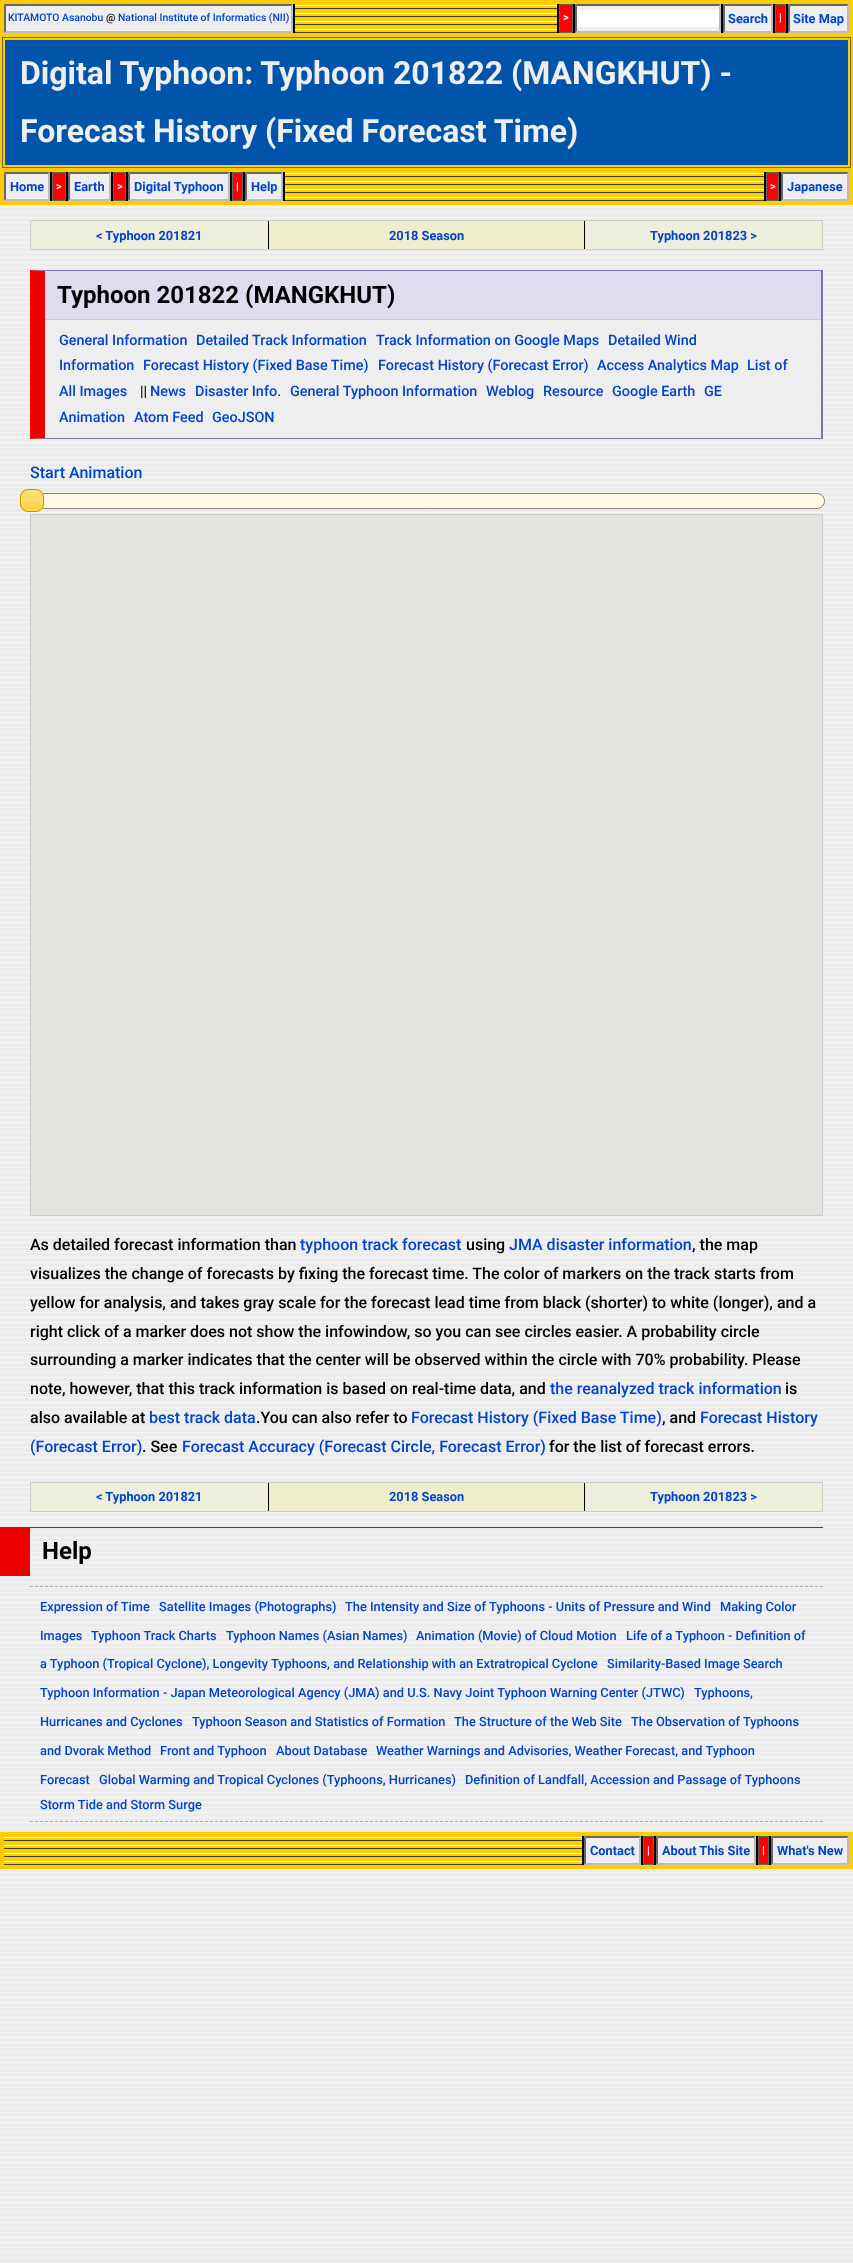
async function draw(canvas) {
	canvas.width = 853;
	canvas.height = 2263;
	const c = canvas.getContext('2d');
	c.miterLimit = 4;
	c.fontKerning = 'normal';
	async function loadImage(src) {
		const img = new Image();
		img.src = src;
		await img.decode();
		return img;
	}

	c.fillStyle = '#fff';
	c.fillRect(0, 0, 853, 2263);
	c.drawImage(await loadImage('img1.png'), 0, 205, 853, 2058);
	for (const [x, y, w, h, color] of [
		[0, 0, 853, 205, '#fc0'],
		[293, 4, 495, 29, '#000'],
		[4, 4, 289, 29, '#eee'],
	]) {
		c.fillStyle = color;
		c.fillRect(x, y, w, h);
	}
	c.fillStyle = '#666';
	c.beginPath();
	c.moveTo(4, 4);
	c.lineTo(293, 4);
	c.lineTo(291, 6);
	c.lineTo(6, 6);
	c.closePath();
	c.fill();
	c.fillStyle = '#bbb';
	c.beginPath();
	c.moveTo(293, 4);
	c.lineTo(293, 33);
	c.lineTo(291, 31);
	c.lineTo(291, 6);
	c.closePath();
	c.fill();
	c.beginPath();
	c.moveTo(293, 33);
	c.lineTo(4, 33);
	c.lineTo(6, 31);
	c.lineTo(291, 31);
	c.closePath();
	c.fill();
	c.fillStyle = '#666';
	c.beginPath();
	c.moveTo(4, 33);
	c.lineTo(4, 4);
	c.lineTo(6, 6);
	c.lineTo(6, 31);
	c.closePath();
	c.fill();
	c.font = '500 10.4px Roboto';
	c.fillStyle = '#04c';
	c.fillText('KITAMOTO Asanobu', 8, 21);
	c.fillStyle = '#000';
	c.fillText('@', 106, 21);
	c.fillStyle = '#04c';
	c.fillText('National Institute of Informatics (NII)', 118, 21);
	c.fillStyle = '#fc0';
	c.fillRect(295, 4, 262, 1);
	c.drawImage(await loadImage('img2.png'), 295, 5, 262, 28);
	c.fillStyle = '#f00';
	c.beginPath();
	c.rect(559.5, 4.5, 13, 28);
	c.fill();
	c.strokeStyle = '#666';
	c.stroke();
	c.font = 'bold 11px Roboto';
	c.fillStyle = '#fff';
	c.fillText('>', 563, 21);
	c.fillStyle = '#eee';
	c.fillRect(575, 4, 146, 29);
	c.fillStyle = '#666';
	c.beginPath();
	c.moveTo(575, 4);
	c.lineTo(721, 4);
	c.lineTo(719, 6);
	c.lineTo(577, 6);
	c.closePath();
	c.fill();
	c.fillStyle = '#bbb';
	c.beginPath();
	c.moveTo(721, 4);
	c.lineTo(721, 33);
	c.lineTo(719, 31);
	c.lineTo(719, 6);
	c.closePath();
	c.fill();
	c.beginPath();
	c.moveTo(721, 33);
	c.lineTo(575, 33);
	c.lineTo(577, 31);
	c.lineTo(719, 31);
	c.closePath();
	c.fill();
	c.fillStyle = '#666';
	c.beginPath();
	c.moveTo(575, 33);
	c.lineTo(575, 4);
	c.lineTo(577, 6);
	c.lineTo(577, 31);
	c.closePath();
	c.fill();
	c.fillStyle = '#fff';
	c.fillRect(577, 10, 142, 17);
	c.fillStyle = '#eee';
	c.fillRect(723, 4, 50, 29);
	c.fillStyle = '#666';
	c.beginPath();
	c.moveTo(723, 4);
	c.lineTo(773, 4);
	c.lineTo(771, 6);
	c.lineTo(725, 6);
	c.closePath();
	c.fill();
	c.fillStyle = '#bbb';
	c.beginPath();
	c.moveTo(773, 4);
	c.lineTo(773, 33);
	c.lineTo(771, 31);
	c.lineTo(771, 6);
	c.closePath();
	c.fill();
	c.beginPath();
	c.moveTo(773, 33);
	c.lineTo(723, 33);
	c.lineTo(725, 31);
	c.lineTo(771, 31);
	c.closePath();
	c.fill();
	c.fillStyle = '#666';
	c.beginPath();
	c.moveTo(723, 33);
	c.lineTo(723, 4);
	c.lineTo(725, 6);
	c.lineTo(725, 31);
	c.closePath();
	c.fill();
	c.font = 'bold 12.8px Roboto';
	c.fillStyle = '#04c';
	c.fillText('Search', 728, 23);
	c.fillStyle = '#f00';
	c.beginPath();
	c.rect(775.5, 4.5, 10, 28);
	c.fill();
	c.stroke();
	c.font = 'bold 11px Roboto';
	c.fillStyle = '#fff';
	c.fillText('|', 779, 21);
	c.fillStyle = '#eee';
	c.fillRect(788, 4, 61, 29);
	c.fillStyle = '#666';
	c.beginPath();
	c.moveTo(788, 4);
	c.lineTo(849, 4);
	c.lineTo(847, 6);
	c.lineTo(790, 6);
	c.closePath();
	c.fill();
	c.fillStyle = '#bbb';
	c.beginPath();
	c.moveTo(849, 4);
	c.lineTo(849, 33);
	c.lineTo(847, 31);
	c.lineTo(847, 6);
	c.closePath();
	c.fill();
	c.beginPath();
	c.moveTo(849, 33);
	c.lineTo(788, 33);
	c.lineTo(790, 31);
	c.lineTo(847, 31);
	c.closePath();
	c.fill();
	c.fillStyle = '#666';
	c.beginPath();
	c.moveTo(788, 33);
	c.lineTo(788, 4);
	c.lineTo(790, 6);
	c.lineTo(790, 31);
	c.closePath();
	c.fill();
	c.font = 'bold 12.8px Roboto';
	c.fillStyle = '#04c';
	c.fillText('Site Map', 793, 23);
	c.strokeRect(2.5, 37.5, 848, 130);
	c.fillStyle = '#05a';
	c.fillRect(5, 40, 843, 125);
	c.font = 'bold 32px Roboto';
	c.fillStyle = '#eee';
	c.fillText('Digital Typhoon: Typhoon 201822 (MANGKHUT) -', 20, 84);
	c.fillText('Forecast History (Fixed Forecast Time)', 20, 142);
	c.fillStyle = '#000';
	c.fillRect(50, 172, 731, 29);
	c.fillStyle = '#eee';
	c.fillRect(4, 172, 46, 29);
	c.fillStyle = '#666';
	c.beginPath();
	c.moveTo(4, 172);
	c.lineTo(50, 172);
	c.lineTo(48, 174);
	c.lineTo(6, 174);
	c.closePath();
	c.fill();
	c.fillStyle = '#bbb';
	c.beginPath();
	c.moveTo(50, 172);
	c.lineTo(50, 201);
	c.lineTo(48, 199);
	c.lineTo(48, 174);
	c.closePath();
	c.fill();
	c.beginPath();
	c.moveTo(50, 201);
	c.lineTo(4, 201);
	c.lineTo(6, 199);
	c.lineTo(48, 199);
	c.closePath();
	c.fill();
	c.fillStyle = '#666';
	c.beginPath();
	c.moveTo(4, 201);
	c.lineTo(4, 172);
	c.lineTo(6, 174);
	c.lineTo(6, 199);
	c.closePath();
	c.fill();
	c.font = 'bold 12.8px Roboto';
	c.fillStyle = '#04c';
	c.fillText('Home', 10, 191);
	c.fillStyle = '#f00';
	c.beginPath();
	c.rect(52.5, 172.5, 13, 28);
	c.fill();
	c.stroke();
	c.font = 'bold 11px Roboto';
	c.fillStyle = '#fff';
	c.fillText('>', 56, 190);
	c.fillStyle = '#eee';
	c.fillRect(68, 172, 43, 29);
	c.fillStyle = '#666';
	c.beginPath();
	c.moveTo(68, 172);
	c.lineTo(111, 172);
	c.lineTo(109, 174);
	c.lineTo(70, 174);
	c.closePath();
	c.fill();
	c.fillStyle = '#bbb';
	c.beginPath();
	c.moveTo(111, 172);
	c.lineTo(111, 201);
	c.lineTo(109, 199);
	c.lineTo(109, 174);
	c.closePath();
	c.fill();
	c.beginPath();
	c.moveTo(111, 201);
	c.lineTo(68, 201);
	c.lineTo(70, 199);
	c.lineTo(109, 199);
	c.closePath();
	c.fill();
	c.fillStyle = '#666';
	c.beginPath();
	c.moveTo(68, 201);
	c.lineTo(68, 172);
	c.lineTo(70, 174);
	c.lineTo(70, 199);
	c.closePath();
	c.fill();
	c.font = 'bold 12.8px Roboto';
	c.fillStyle = '#04c';
	c.fillText('Earth', 74, 191);
	c.fillStyle = '#f00';
	c.beginPath();
	c.rect(113.5, 172.5, 12, 28);
	c.fill();
	c.stroke();
	c.font = 'bold 11px Roboto';
	c.fillStyle = '#fff';
	c.fillText('>', 117, 190);
	c.fillStyle = '#eee';
	c.fillRect(128, 172, 102, 29);
	c.fillStyle = '#666';
	c.beginPath();
	c.moveTo(128, 172);
	c.lineTo(230, 172);
	c.lineTo(228, 174);
	c.lineTo(130, 174);
	c.closePath();
	c.fill();
	c.fillStyle = '#bbb';
	c.beginPath();
	c.moveTo(230, 172);
	c.lineTo(230, 201);
	c.lineTo(228, 199);
	c.lineTo(228, 174);
	c.closePath();
	c.fill();
	c.beginPath();
	c.moveTo(230, 201);
	c.lineTo(128, 201);
	c.lineTo(130, 199);
	c.lineTo(228, 199);
	c.closePath();
	c.fill();
	c.fillStyle = '#666';
	c.beginPath();
	c.moveTo(128, 201);
	c.lineTo(128, 172);
	c.lineTo(130, 174);
	c.lineTo(130, 199);
	c.closePath();
	c.fill();
	c.font = 'bold 12.8px Roboto';
	c.fillStyle = '#04c';
	c.fillText('Digital Typhoon', 134, 191);
	c.fillStyle = '#f00';
	c.beginPath();
	c.rect(232.5, 172.5, 10, 28);
	c.fill();
	c.stroke();
	c.font = 'bold 11px Roboto';
	c.fillStyle = '#fff';
	c.fillText('|', 236, 190);
	c.fillStyle = '#eee';
	c.fillRect(245, 172, 38, 29);
	c.fillStyle = '#666';
	c.beginPath();
	c.moveTo(245, 172);
	c.lineTo(283, 172);
	c.lineTo(281, 174);
	c.lineTo(247, 174);
	c.closePath();
	c.fill();
	c.fillStyle = '#bbb';
	c.beginPath();
	c.moveTo(283, 172);
	c.lineTo(283, 201);
	c.lineTo(281, 199);
	c.lineTo(281, 174);
	c.closePath();
	c.fill();
	c.beginPath();
	c.moveTo(283, 201);
	c.lineTo(245, 201);
	c.lineTo(247, 199);
	c.lineTo(281, 199);
	c.closePath();
	c.fill();
	c.fillStyle = '#666';
	c.beginPath();
	c.moveTo(245, 201);
	c.lineTo(245, 172);
	c.lineTo(247, 174);
	c.lineTo(247, 199);
	c.closePath();
	c.fill();
	c.font = 'bold 12.8px Roboto';
	c.fillStyle = '#04c';
	c.fillText('Help', 251, 191);
	c.fillStyle = '#fc0';
	c.fillRect(285, 172, 479, 1);
	c.drawImage(await loadImage('img3.png'), 285, 173, 479, 28);
	c.fillStyle = '#f00';
	c.beginPath();
	c.rect(766.5, 172.5, 12, 28);
	c.fill();
	c.stroke();
	c.font = 'bold 11px Roboto';
	c.fillStyle = '#fff';
	c.fillText('>', 770, 190);
	c.fillStyle = '#eee';
	c.fillRect(781, 172, 68, 29);
	c.fillStyle = '#666';
	c.beginPath();
	c.moveTo(781, 172);
	c.lineTo(849, 172);
	c.lineTo(847, 174);
	c.lineTo(783, 174);
	c.closePath();
	c.fill();
	c.fillStyle = '#bbb';
	c.beginPath();
	c.moveTo(849, 172);
	c.lineTo(849, 201);
	c.lineTo(847, 199);
	c.lineTo(847, 174);
	c.closePath();
	c.fill();
	c.beginPath();
	c.moveTo(849, 201);
	c.lineTo(781, 201);
	c.lineTo(783, 199);
	c.lineTo(847, 199);
	c.closePath();
	c.fill();
	c.fillStyle = '#666';
	c.beginPath();
	c.moveTo(781, 201);
	c.lineTo(781, 172);
	c.lineTo(783, 174);
	c.lineTo(783, 199);
	c.closePath();
	c.fill();
	c.font = 'bold 12.8px Roboto';
	c.fillStyle = '#04c';
	c.fillText('Japanese', 787, 191);
	for (const [x, y, w, h, color] of [
		[30, 220, 793, 30, '#ccc'],
		[268, 221, 317, 28, '#000'],
		[31, 221, 237, 28, '#eed'],
	]) {
		c.fillStyle = color;
		c.fillRect(x, y, w, h);
	}
	c.fillStyle = '#04c';
	c.fillText('< Typhoon 201821', 96, 240);
	c.fillStyle = '#eec';
	c.fillRect(269, 221, 315, 28);
	c.fillStyle = '#04c';
	c.fillText('2018 Season', 389, 240);
	c.fillStyle = '#eed';
	c.fillRect(585, 221, 237, 28);
	c.fillStyle = '#04c';
	c.fillText('Typhoon 201823 >', 650, 240);
	c.fillStyle = '#77a';
	c.beginPath();
	c.moveTo(30, 270);
	c.lineTo(823, 270);
	c.lineTo(821, 271);
	c.lineTo(45, 271);
	c.closePath();
	c.fill();
	c.fillRect(821, 270, 2, 169);
	c.beginPath();
	c.moveTo(823, 439);
	c.lineTo(30, 439);
	c.lineTo(45, 438);
	c.lineTo(821, 438);
	c.closePath();
	c.fill();
	c.fillStyle = '#e00';
	c.beginPath();
	c.moveTo(30, 439);
	c.lineTo(30, 270);
	c.lineTo(45, 271);
	c.lineTo(45, 438);
	c.closePath();
	c.fill();
	c.fillStyle = '#dde';
	c.fillRect(45, 271, 776, 48);
	c.fillStyle = '#ccc';
	c.fillRect(45, 319, 776, 1);
	c.font = 'bold 24px Roboto';
	c.fillStyle = '#000';
	c.fillText('Typhoon 201822 (MANGKHUT)', 57, 303);
	c.fillStyle = '#eee';
	c.fillRect(45, 322, 776, 116);
	c.font = '500 14.4px Roboto';
	c.fillStyle = '#04c';
	for (const [text, x, y] of [
		['General Information', 59, 345],
		['Detailed Track Information', 196, 345],
		['Track Information on Google Maps', 376, 345],
		['Detailed Wind', 608, 345],
		['Information', 59, 370],
		['Forecast History (Fixed Base Time)', 143, 370],
		['Forecast History (Forecast Error)', 378, 370],
		['Access Analytics Map', 597, 370],
		['List of', 747, 370],
		['All Images', 59, 396],
	]) {
		c.fillText(text, x, y);
	}
	c.fillStyle = '#000';
	c.fillText('||', 140, 396);
	c.fillStyle = '#04c';
	for (const [text, x, y] of [
		['News', 150, 396],
		['Disaster Info.', 195, 396],
		['General Typhoon Information', 290, 396],
		['Weblog', 486, 396],
		['Resource', 543, 396],
		['Google Earth', 612, 396],
		['GE', 704, 396],
		['Animation', 59, 422],
		['Atom Feed', 134, 422],
		['GeoJSON', 212, 422],
	]) {
		c.fillText(text, x, y);
	}
	c.font = '500 16px Roboto';
	c.fillText('Start Animation', 30, 478);
	c.drawImage(await loadImage('img4.png'), 42, 494, 783, 15);
	c.beginPath();
	c.roundRect(30.5, 493.5, 794, 15, 7.5);
	c.strokeStyle = '#8e846b';
	c.stroke();
	c.drawImage(await loadImage('img5.png'), 20, 489, 24, 23);
	c.beginPath();
	c.roundRect(20.5, 489.5, 23, 22, 7.5);
	c.strokeStyle = '#d19405';
	c.stroke();
	c.strokeStyle = '#ccc';
	c.strokeRect(30.5, 514.5, 792, 701);
	c.fillStyle = '#e5e3df';
	c.fillRect(31, 515, 791, 700);
	c.fillStyle = '#000';
	c.fillText('As detailed forecast information than', 30, 1250);
	c.fillStyle = '#04c';
	c.fillText('typhoon track forecast', 300, 1250);
	c.fillStyle = '#000';
	c.fillText('using', 466, 1250);
	c.fillStyle = '#04c';
	c.fillText('JMA disaster information', 509, 1250);
	c.fillStyle = '#000';
	for (const [text, x, y] of [
		[', the map', 692, 1250],
		['visualizes the change of forecasts by fixing the forecast time. The color of markers on the track starts from', 30, 1279],
		['yellow for analysis, and takes gray scale for the forecast lead time from black (shorter) to white (longer), and a', 30, 1308],
		['right click of a marker does not show the infowindow, so you can see circles easier. A probability circle', 30, 1337],
		['surrounding a marker indicates that the center will be observed within the circle with 70% probability. Please', 30, 1365],
		['note, however, that this track information is based on real-time data, and', 30, 1394],
	]) {
		c.fillText(text, x, y);
	}
	c.fillStyle = '#04c';
	c.fillText('the reanalyzed track information', 550, 1394);
	c.fillStyle = '#000';
	c.fillText('is', 785, 1394);
	c.fillText('also available at', 30, 1423);
	c.fillStyle = '#04c';
	c.fillText('best track data', 149, 1423);
	c.fillStyle = '#000';
	c.fillText('.You can also refer to', 256, 1423);
	c.fillStyle = '#04c';
	c.fillText('Forecast History (Fixed Base Time)', 411, 1423);
	c.fillStyle = '#000';
	c.fillText(', and', 662, 1423);
	c.fillStyle = '#04c';
	c.fillText('Forecast History', 700, 1423);
	c.fillText('(Forecast Error)', 30, 1452);
	c.fillStyle = '#000';
	c.fillText('. See', 142, 1452);
	c.fillStyle = '#04c';
	c.fillText('Forecast Accuracy (Forecast Circle, Forecast Error)', 182, 1452);
	c.fillStyle = '#000';
	c.fillText('for the list of forecast errors.', 549, 1452);
	for (const [x, y, w, h, color] of [
		[30, 1482, 793, 30, '#ccc'],
		[268, 1483, 317, 28, '#000'],
		[31, 1483, 237, 28, '#eed'],
	]) {
		c.fillStyle = color;
		c.fillRect(x, y, w, h);
	}
	c.font = 'bold 12.8px Roboto';
	c.fillStyle = '#04c';
	c.fillText('< Typhoon 201821', 96, 1501);
	c.fillStyle = '#eec';
	c.fillRect(269, 1483, 315, 28);
	c.fillStyle = '#04c';
	c.fillText('2018 Season', 389, 1501);
	c.fillStyle = '#eed';
	c.fillRect(585, 1483, 237, 28);
	c.fillStyle = '#04c';
	c.fillText('Typhoon 201823 >', 650, 1501);
	c.fillStyle = '#e00';
	c.fillRect(30, 1527, 793, 1);
	c.fillRect(0, 1527, 30, 49);
	c.font = 'bold 24px Roboto';
	c.fillStyle = '#000';
	c.fillText('Help', 42, 1559);
	c.beginPath();
	c.moveTo(30, 1586.5);
	c.lineTo(823, 1586.5);
	c.strokeStyle = '#aaa';
	c.setLineDash([3, 2]);
	c.stroke();
	c.beginPath();
	c.moveTo(30, 1821.5);
	c.lineTo(823, 1821.5);
	c.stroke();
	c.font = '500 12.8px Roboto';
	c.fillStyle = '#04c';
	for (const [text, x, y] of [
		['Expression of Time', 40, 1611],
		['Satellite Images (Photographs)', 159, 1611],
		['The Intensity and Size of Typhoons - Units of Pressure and Wind', 345, 1611],
		['Making Color', 720, 1611],
		['Images', 40, 1640],
		['Typhoon Track Charts', 91, 1640],
		['Typhoon Names (Asian Names)', 226, 1640],
		['Animation (Movie) of Cloud Motion', 416, 1640],
		['Life of a Typhoon - Definition of', 626, 1640],
		['a Typhoon (Tropical Cyclone), Longevity Typhoons, and Relationship with an Extratropical Cyclone', 40, 1668],
		['Similarity-Based Image Search', 607, 1668],
		['Typhoon Information - Japan Meteorological Agency (JMA) and U.S. Navy Joint Typhoon Warning Center (JTWC)', 40, 1697],
		['Typhoons,', 694, 1697],
		['Hurricanes and Cyclones', 40, 1726],
		['Typhoon Season and Statistics of Formation', 192, 1726],
		['The Structure of the Web Site', 454, 1726],
		['The Observation of Typhoons', 631, 1726],
		['and Dvorak Method', 40, 1755],
		['Front and Typhoon', 160, 1755],
		['About Database', 276, 1755],
		['Weather Warnings and Advisories, Weather Forecast, and Typhoon', 376, 1755],
		['Forecast', 40, 1784],
		['Global Warming and Tropical Cyclones (Typhoons, Hurricanes)', 99, 1784],
		['Definition of Landfall, Accession and Passage of Typhoons', 465, 1784],
		['Storm Tide and Storm Surge', 40, 1809],
	]) {
		c.fillText(text, x, y);
	}
	c.fillStyle = '#fc0';
	c.fillRect(0, 1832, 853, 37);
	c.fillStyle = '#000';
	c.fillRect(582, 1836, 189, 29);
	c.drawImage(await loadImage('img6.png'), 4, 1837, 578, 28);
	c.fillStyle = '#eee';
	c.fillRect(584, 1836, 57, 29);
	c.fillStyle = '#666';
	c.beginPath();
	c.moveTo(584, 1836);
	c.lineTo(641, 1836);
	c.lineTo(639, 1838);
	c.lineTo(586, 1838);
	c.closePath();
	c.fill();
	c.fillStyle = '#bbb';
	c.beginPath();
	c.moveTo(641, 1836);
	c.lineTo(641, 1865);
	c.lineTo(639, 1863);
	c.lineTo(639, 1838);
	c.closePath();
	c.fill();
	c.beginPath();
	c.moveTo(641, 1865);
	c.lineTo(584, 1865);
	c.lineTo(586, 1863);
	c.lineTo(639, 1863);
	c.closePath();
	c.fill();
	c.fillStyle = '#666';
	c.beginPath();
	c.moveTo(584, 1865);
	c.lineTo(584, 1836);
	c.lineTo(586, 1838);
	c.lineTo(586, 1863);
	c.closePath();
	c.fill();
	c.font = 'bold 12.8px Roboto';
	c.fillStyle = '#04c';
	c.fillText('Contact', 590, 1855);
	c.fillStyle = '#f00';
	c.beginPath();
	c.rect(643.5, 1836.5, 10, 28);
	c.fill();
	c.strokeStyle = '#666';
	c.setLineDash([]);
	c.stroke();
	c.font = 'bold 11px Roboto';
	c.fillStyle = '#fff';
	c.fillText('|', 647, 1854);
	c.fillStyle = '#eee';
	c.fillRect(656, 1836, 100, 29);
	c.fillStyle = '#666';
	c.beginPath();
	c.moveTo(656, 1836);
	c.lineTo(756, 1836);
	c.lineTo(754, 1838);
	c.lineTo(658, 1838);
	c.closePath();
	c.fill();
	c.fillStyle = '#bbb';
	c.beginPath();
	c.moveTo(756, 1836);
	c.lineTo(756, 1865);
	c.lineTo(754, 1863);
	c.lineTo(754, 1838);
	c.closePath();
	c.fill();
	c.beginPath();
	c.moveTo(756, 1865);
	c.lineTo(656, 1865);
	c.lineTo(658, 1863);
	c.lineTo(754, 1863);
	c.closePath();
	c.fill();
	c.fillStyle = '#666';
	c.beginPath();
	c.moveTo(656, 1865);
	c.lineTo(656, 1836);
	c.lineTo(658, 1838);
	c.lineTo(658, 1863);
	c.closePath();
	c.fill();
	c.font = 'bold 12.8px Roboto';
	c.fillStyle = '#04c';
	c.fillText('About This Site', 662, 1855);
	c.fillStyle = '#f00';
	c.beginPath();
	c.rect(758.5, 1836.5, 10, 28);
	c.fill();
	c.stroke();
	c.font = 'bold 11px Roboto';
	c.fillStyle = '#fff';
	c.fillText('|', 762, 1854);
	c.fillStyle = '#eee';
	c.fillRect(771, 1836, 78, 29);
	c.fillStyle = '#666';
	c.beginPath();
	c.moveTo(771, 1836);
	c.lineTo(849, 1836);
	c.lineTo(847, 1838);
	c.lineTo(773, 1838);
	c.closePath();
	c.fill();
	c.fillStyle = '#bbb';
	c.beginPath();
	c.moveTo(849, 1836);
	c.lineTo(849, 1865);
	c.lineTo(847, 1863);
	c.lineTo(847, 1838);
	c.closePath();
	c.fill();
	c.beginPath();
	c.moveTo(849, 1865);
	c.lineTo(771, 1865);
	c.lineTo(773, 1863);
	c.lineTo(847, 1863);
	c.closePath();
	c.fill();
	c.fillStyle = '#666';
	c.beginPath();
	c.moveTo(771, 1865);
	c.lineTo(771, 1836);
	c.lineTo(773, 1838);
	c.lineTo(773, 1863);
	c.closePath();
	c.fill();
	c.font = 'bold 12.8px Roboto';
	c.fillStyle = '#04c';
	c.fillText('What\'s New', 777, 1855);
}

draw(document.querySelector('canvas'));
